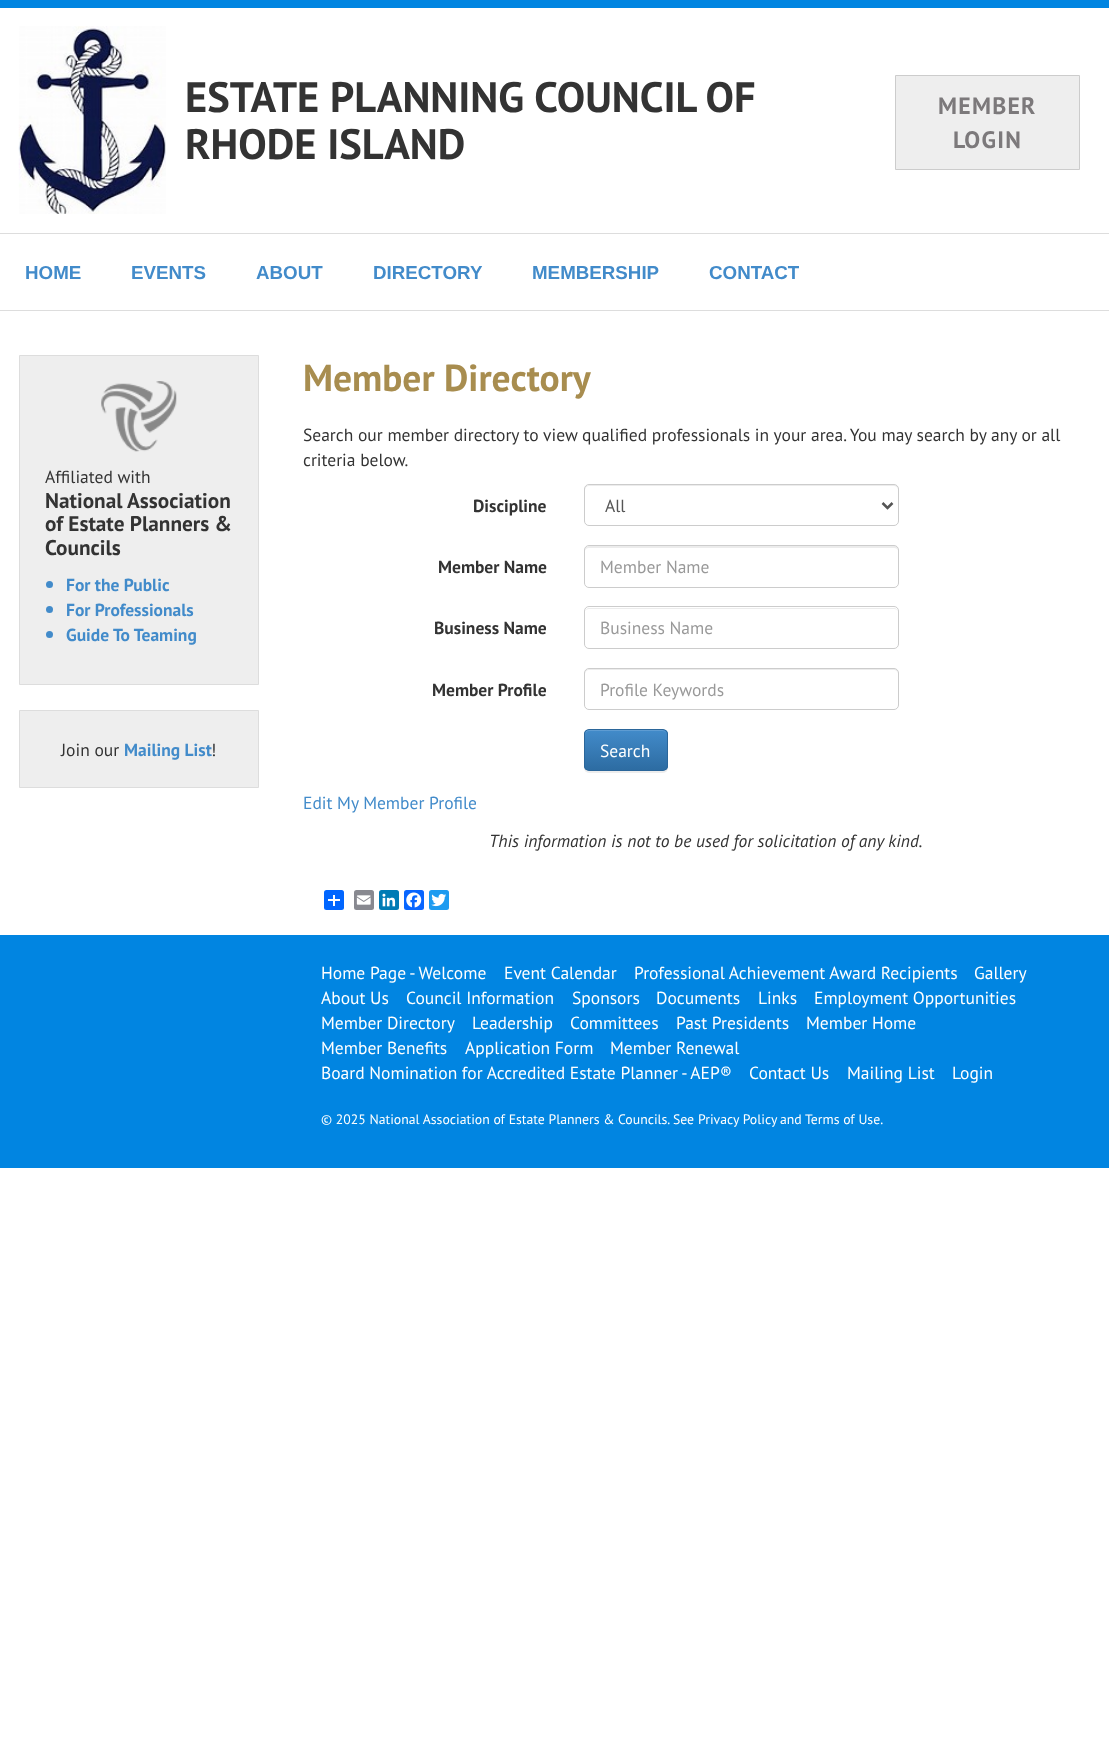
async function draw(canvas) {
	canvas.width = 1109;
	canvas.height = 1739;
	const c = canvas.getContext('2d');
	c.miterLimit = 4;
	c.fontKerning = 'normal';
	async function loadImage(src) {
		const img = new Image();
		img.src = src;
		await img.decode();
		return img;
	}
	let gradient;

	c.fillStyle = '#fff';
	c.fillRect(0, 0, 1109, 1739);
	c.fillStyle = '#0185e1';
	c.fillRect(0, 0, 1109, 8);
	c.fillStyle = '#ddd';
	c.fillRect(0, 233, 1109, 1);
	c.drawImage(await loadImage('img1.png'), 18, 26, 148, 188);
	c.font = 'bold 42.5px PT Sans';
	c.fillStyle = '#333';
	c.fillText('ESTATE PLANNING COUNCIL OF', 185, 112);
	c.fillText('RHODE ISLAND', 185, 159);
	c.fillStyle = '#eee';
	c.beginPath();
	c.rect(895.5, 75.5, 184, 94);
	c.fill();
	c.strokeStyle = '#ccc';
	c.stroke();
	c.letterSpacing = '1.25px';
	c.font = 'bold 23.75px PT Sans';
	c.fillStyle = '#7c797b';
	c.fillText('MEMBER', 938, 114);
	c.fillText('LOGIN', 953, 148);
	c.fillStyle = '#ddd';
	c.fillRect(0, 310, 1109, 1);
	c.letterSpacing = '0px';
	c.font = 'bold 18.75px Liberation Sans';
	c.fillStyle = '#428bca';
	for (const [text, x, y] of [
		['HOME', 25, 279],
		['EVENTS', 131, 279],
		['ABOUT', 256, 279],
		['DIRECTORY', 373, 279],
		['MEMBERSHIP', 532, 279],
		['CONTACT', 709, 279],
	]) {
		c.fillText(text, x, y);
	}
	c.fillStyle = '#eee';
	c.beginPath();
	c.rect(19.5, 355.5, 239, 329);
	c.fill();
	c.strokeStyle = '#ddd';
	c.stroke();
	c.drawImage(await loadImage('img2.png'), 101, 381, 76, 71);
	c.font = '17.5px PT Sans';
	c.fillStyle = '#333';
	c.fillText('Affiliated with', 45, 483);
	c.font = 'bold 21.25px PT Sans';
	for (const [text, x, y] of [
		['National Association', 45, 508],
		['of Estate Planners &', 45, 531],
		['Councils', 45, 555],
	]) {
		c.fillText(text, x, y);
	}
	c.fillStyle = '#428bca';
	c.beginPath();
	c.arc(49.5, 584.5, 3.5, 0, 2 * Math.PI);
	c.fill();
	c.font = 'bold 17.5px PT Sans';
	c.fillText('For the Public', 66, 591);
	c.beginPath();
	c.arc(49.5, 609.5, 3.5, 0, 2 * Math.PI);
	c.fill();
	c.fillText('For Professionals', 66, 616);
	c.beginPath();
	c.arc(49.5, 634.5, 3.5, 0, 2 * Math.PI);
	c.fill();
	c.fillText('Guide To Teaming', 66, 641);
	c.fillStyle = '#eee';
	c.beginPath();
	c.rect(19.5, 710.5, 239, 77);
	c.fill();
	c.stroke();
	c.font = '17.5px PT Sans';
	c.fillStyle = '#333';
	c.fillText('Join our', 61, 756);
	c.font = 'bold 17.5px PT Sans';
	c.fillStyle = '#428bca';
	c.fillText('Mailing List', 124, 756);
	c.font = '17.5px PT Sans';
	c.fillStyle = '#333';
	c.fillText('!', 211, 756);
	c.font = 'bold 37.5px PT Sans';
	c.fillStyle = '#a88d4f';
	c.fillText('Member Directory', 303, 391);
	c.font = '17.5px PT Sans';
	c.fillStyle = '#333';
	c.fillText('Search our member directory to view qualified professionals in your area. You may search by any or all', 303, 441);
	c.fillText('criteria below.', 303, 466);
	c.font = 'bold 17.5px PT Sans';
	c.fillText('Discipline', 473, 512);
	c.fillStyle = '#ececec';
	c.beginPath();
	c.moveTo(589, 486);
	c.lineTo(894, 486);
	c.bezierCurveTo(896, 486, 898, 488, 898, 490);
	c.bezierCurveTo(898, 487, 897, 485, 894, 485);
	c.lineTo(589, 485);
	c.lineTo(586, 486);
	c.bezierCurveTo(585, 487, 585, 489, 585, 490);
	c.bezierCurveTo(585, 488, 587, 486, 589, 486);
	c.closePath();
	c.fill();
	c.beginPath();
	c.roundRect(584.5, 484.5, 314, 41, 4.5);
	c.strokeStyle = '#ccc';
	c.stroke();
	c.beginPath();
	c.moveTo(882.5, 503);
	c.lineTo(887.5, 508);
	c.lineTo(892.5, 503);
	c.strokeStyle = '#555';
	c.lineWidth = 2.5;
	c.stroke();
	c.font = '17.5px PT Sans';
	c.fillStyle = '#555';
	c.fillText('All', 605, 512);
	c.font = 'bold 17.5px PT Sans';
	c.fillStyle = '#333';
	c.fillText('Member Name', 438, 573);
	c.fillStyle = '#ececec';
	c.beginPath();
	c.moveTo(589, 548);
	c.lineTo(894, 548);
	c.bezierCurveTo(896, 548, 898, 549, 898, 551);
	c.bezierCurveTo(898, 548, 897, 546, 894, 546);
	c.lineTo(589, 546);
	c.lineTo(586, 547);
	c.bezierCurveTo(585, 548, 585, 550, 585, 551);
	c.bezierCurveTo(585, 549, 587, 548, 589, 548);
	c.closePath();
	c.fill();
	c.beginPath();
	c.roundRect(584.5, 545.5, 314, 42, 4.5);
	c.strokeStyle = '#ccc';
	c.lineWidth = 1;
	c.stroke();
	c.font = '17.5px PT Sans';
	c.fillStyle = '#999';
	c.fillText('Member Name', 600, 573);
	c.font = 'bold 17.5px PT Sans';
	c.fillStyle = '#333';
	c.fillText('Business Name', 434, 634);
	c.fillStyle = '#ececec';
	c.beginPath();
	c.moveTo(589, 609);
	c.lineTo(894, 609);
	c.bezierCurveTo(896, 609, 898, 610, 898, 612);
	c.bezierCurveTo(898, 610, 896, 608, 894, 608);
	c.lineTo(589, 608);
	c.bezierCurveTo(587, 608, 585, 610, 585, 612);
	c.bezierCurveTo(585, 610, 587, 609, 589, 609);
	c.closePath();
	c.fill();
	c.beginPath();
	c.roundRect(584.5, 606.5, 314, 42, 4.5);
	c.stroke();
	c.font = '17.5px PT Sans';
	c.fillStyle = '#999';
	c.fillText('Business Name', 600, 634);
	c.font = 'bold 17.5px PT Sans';
	c.fillStyle = '#333';
	c.fillText('Member Profile', 432, 696);
	c.fillStyle = '#ececec';
	c.beginPath();
	c.moveTo(589, 670);
	c.lineTo(894, 670);
	c.bezierCurveTo(896, 670, 898, 672, 898, 674);
	c.bezierCurveTo(898, 671, 897, 669, 894, 669);
	c.lineTo(589, 669);
	c.lineTo(586, 670);
	c.bezierCurveTo(585, 671, 585, 673, 585, 674);
	c.bezierCurveTo(585, 672, 587, 670, 589, 670);
	c.closePath();
	c.fill();
	c.beginPath();
	c.roundRect(584.5, 668.5, 314, 41, 4.5);
	c.stroke();
	c.font = '17.5px PT Sans';
	c.fillStyle = '#999';
	c.fillText('Profile Keywords', 600, 696);
	c.fillStyle = '#00000012';
	c.filter = 'blur(0.5px)';
	c.beginPath();
	c.roundRect(584, 730, 84, 43, 5);
	c.fill();
	c.filter = 'none';
	c.save();
	c.beginPath();
	c.roundRect(584, 729, 84, 42, 5);
	c.clip();
	gradient = c.createLinearGradient(626, 730, 626, 770);
	gradient.addColorStop(0, '#428bca');
	gradient.addColorStop(1, '#2d6ca2');
	c.fillStyle = gradient;
	c.fillRect(584, 730, 84, 40);
	c.restore();
	c.fillStyle = '#5e9cd2';
	c.beginPath();
	c.moveTo(589, 731);
	c.lineTo(662, 731);
	c.bezierCurveTo(665, 731, 666, 733, 666, 735);
	c.bezierCurveTo(666, 727, 655, 730, 650, 730);
	c.lineTo(601, 730);
	c.bezierCurveTo(596, 730, 585, 727, 585, 735);
	c.bezierCurveTo(585, 733, 587, 731, 589, 731);
	c.closePath();
	c.fill();
	c.beginPath();
	c.roundRect(584.5, 729.5, 83, 41, 4.5);
	c.strokeStyle = '#2b669a';
	c.stroke();
	c.fillStyle = '#fff';
	c.fillText('Search', 600, 757);
	c.fillStyle = '#428bca';
	c.fillText('Edit My Member Profile', 303, 809);
	c.font = 'italic 17.5px PT Sans';
	c.fillStyle = '#333';
	c.fillText('This information is not to be used for solicitation of any kind.', 489, 847);
	c.fillStyle = '#0166ff';
	c.beginPath();
	c.roundRect(324, 890, 20, 20, 2.5);
	c.fill();
	c.fillStyle = '#fff';
	c.fillRect(333, 895, 2, 11);
	c.fillRect(328, 899, 12, 2);
	c.fillStyle = '#888990';
	c.beginPath();
	c.roundRect(354, 890, 20, 20, 2.5);
	c.fill();
	c.drawImage(await loadImage('img3.png'), 356, 895, 15, 10);
	c.fillStyle = '#007bb5';
	c.beginPath();
	c.roundRect(379, 890, 20, 20, 2.5);
	c.fill();
	c.drawImage(await loadImage('img4.png'), 382, 893, 14, 14);
	c.fillStyle = '#0866ff';
	c.beginPath();
	c.roundRect(404, 890, 20, 20, 2.5);
	c.fill();
	c.drawImage(await loadImage('img5.png'), 406, 892, 16, 16);
	c.fillStyle = '#1d9bf0';
	c.beginPath();
	c.roundRect(429, 890, 20, 20, 2.5);
	c.fill();
	c.drawImage(await loadImage('img6.png'), 431, 893, 16, 14);
	c.fillStyle = '#0185e1';
	c.fillRect(0, 935, 1109, 233);
	c.font = '17.5px PT Sans';
	c.fillStyle = '#fff';
	for (const [text, x, y] of [
		['Home Page - Welcome', 321, 979],
		['Event Calendar', 504, 979],
		['Professional Achievement Award Recipients', 634, 979],
		['Gallery', 974, 979],
		['About Us', 321, 1004],
		['Council Information', 406, 1004],
		['Sponsors', 572, 1004],
		['Documents', 656, 1004],
		['Links', 758, 1004],
		['Employment Opportunities', 814, 1004],
		['Member Directory', 321, 1029],
		['Leadership', 472, 1029],
		['Committees', 570, 1029],
		['Past Presidents', 676, 1029],
		['Member Home', 806, 1029],
		['Member Benefits', 321, 1054],
		['Application Form', 465, 1054],
		['Member Renewal', 610, 1054],
		['Board Nomination for Accredited Estate Planner - AEP®', 321, 1079],
		['Contact Us', 749, 1079],
		['Mailing List', 847, 1079],
		['Login', 952, 1079],
	]) {
		c.fillText(text, x, y);
	}
	c.font = '13.75px PT Sans';
	for (const [text, x, y] of [
		['© 2025 National Association of Estate Planners & Councils. See', 321, 1124],
		['Privacy Policy', 698, 1124],
		['and Terms of Use.', 780, 1124],
	]) {
		c.fillText(text, x, y);
	}
}

draw(document.querySelector('canvas'));
